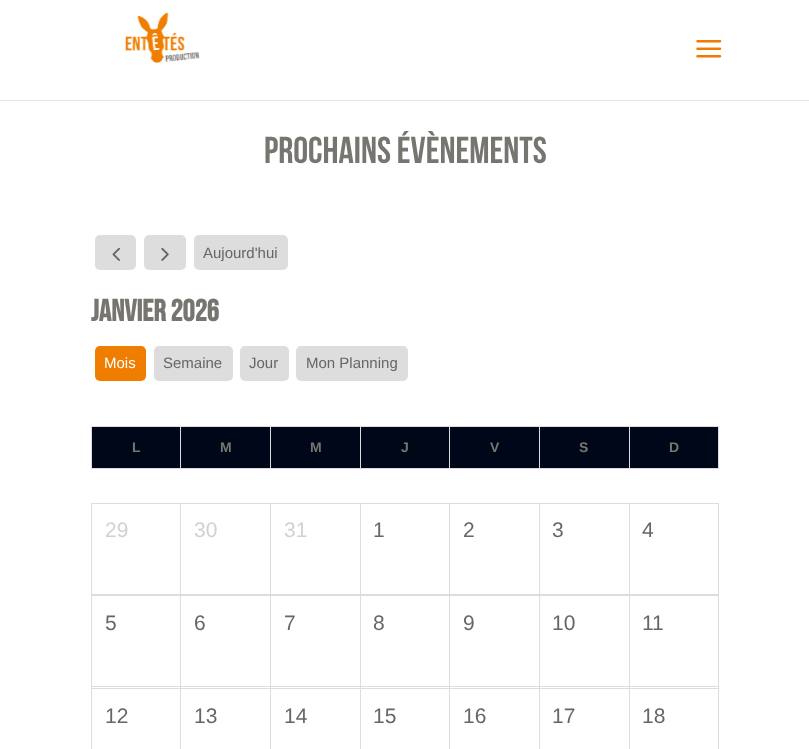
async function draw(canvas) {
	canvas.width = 809;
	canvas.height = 749;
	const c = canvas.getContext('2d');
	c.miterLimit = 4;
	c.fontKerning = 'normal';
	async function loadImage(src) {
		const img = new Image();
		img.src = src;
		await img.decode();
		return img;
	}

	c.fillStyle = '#fff';
	c.fillRect(0, 0, 809, 749);
	c.fillStyle = '#e6e6e6';
	c.fillRect(0, 100, 809, 1);
	c.drawImage(await loadImage('img1.png'), 125, 12, 75, 51);
	c.drawImage(await loadImage('img2.png'), 696, 40, 26, 18);
	c.font = '37.5px Bebas Neue';
	c.fillStyle = '#767570';
	c.fillText('Prochains Évènements', 264, 163);
	c.fillStyle = '#ddd';
	c.beginPath();
	c.roundRect(95, 235, 41, 35, 5);
	c.fill();
	c.drawImage(await loadImage('img3.png'), 112, 247, 8, 14);
	c.beginPath();
	c.roundRect(144, 235, 42, 35, 5);
	c.fill();
	c.drawImage(await loadImage('img4.png'), 161, 247, 8, 14);
	c.beginPath();
	c.roundRect(194, 235, 94, 35, 5);
	c.fill();
	c.font = '15px Liberation Sans';
	c.fillStyle = '#666';
	c.fillText('Aujourd\'hui', 203, 258);
	c.font = 'bold 30.5px Bebas Neue';
	c.fillStyle = '#767570';
	c.fillText('janvier 2026', 91, 321);
	c.fillStyle = '#ef7d00';
	c.beginPath();
	c.roundRect(95, 346, 51, 35, 5);
	c.fill();
	c.font = '15px Liberation Sans';
	c.fillStyle = '#fff';
	c.fillText('Mois', 104, 368);
	c.fillStyle = '#ddd';
	c.beginPath();
	c.roundRect(154, 346, 79, 35, 5);
	c.fill();
	c.fillStyle = '#666';
	c.fillText('Semaine', 163, 368);
	c.fillStyle = '#ddd';
	c.beginPath();
	c.roundRect(240, 346, 49, 35, 5);
	c.fill();
	c.fillStyle = '#666';
	c.fillText('Jour', 249, 368);
	c.fillStyle = '#ddd';
	c.beginPath();
	c.roundRect(296, 346, 112, 35, 5);
	c.fill();
	c.fillStyle = '#666';
	c.fillText('Mon Planning', 306, 368);
	for (const [x, y, w, h, color] of [
		[92, 427, 88, 41, '#000719'],
		[629, 426, 90, 1, '#ddd'],
		[718, 426, 1, 43, '#ddd'],
		[629, 468, 90, 1, '#ddd'],
		[629, 426, 1, 43, '#ddd'],
		[539, 426, 91, 1, '#ddd'],
		[539, 468, 91, 1, '#ddd'],
		[539, 426, 1, 43, '#ddd'],
		[449, 426, 91, 1, '#ddd'],
		[449, 468, 91, 1, '#ddd'],
		[449, 426, 1, 43, '#ddd'],
		[360, 426, 90, 1, '#ddd'],
		[360, 468, 90, 1, '#ddd'],
		[360, 426, 1, 43, '#ddd'],
		[270, 426, 91, 1, '#ddd'],
		[270, 468, 91, 1, '#ddd'],
		[270, 426, 1, 43, '#ddd'],
		[180, 426, 91, 1, '#ddd'],
		[180, 468, 91, 1, '#ddd'],
		[180, 426, 1, 43, '#ddd'],
		[91, 426, 90, 1, '#ddd'],
		[91, 468, 90, 1, '#ddd'],
		[91, 426, 1, 43, '#ddd'],
	]) {
		c.fillStyle = color;
		c.fillRect(x, y, w, h);
	}
	c.font = 'bold 14px Liberation Sans';
	c.fillStyle = '#767570';
	c.fillText('L', 132, 452);
	c.fillStyle = '#000719';
	c.fillRect(181, 427, 89, 41);
	c.fillStyle = '#767570';
	c.fillText('M', 220, 452);
	c.fillStyle = '#000719';
	c.fillRect(271, 427, 89, 41);
	c.fillStyle = '#767570';
	c.fillText('M', 310, 452);
	c.fillStyle = '#000719';
	c.fillRect(361, 427, 88, 41);
	c.fillStyle = '#767570';
	c.fillText('J', 401, 452);
	c.fillStyle = '#000719';
	c.fillRect(450, 427, 89, 41);
	c.fillStyle = '#767570';
	c.fillText('V', 490, 452);
	c.fillStyle = '#000719';
	c.fillRect(540, 427, 89, 41);
	c.fillStyle = '#767570';
	c.fillText('S', 579, 452);
	c.fillStyle = '#000719';
	c.fillRect(630, 427, 88, 41);
	c.fillStyle = '#767570';
	c.fillText('D', 669, 452);
	for (const [x, y, w, h, color] of [
		[629, 503, 90, 1, '#ddd'],
		[718, 503, 1, 92, '#ddd'],
		[629, 594, 90, 2, '#ddd'],
		[629, 503, 1, 92, '#ddd'],
		[539, 503, 91, 1, '#ddd'],
		[539, 594, 91, 1, '#ddd'],
		[539, 503, 1, 92, '#ddd'],
		[449, 503, 91, 1, '#ddd'],
		[449, 594, 91, 1, '#ddd'],
		[449, 503, 1, 92, '#ddd'],
		[360, 503, 90, 1, '#ddd'],
		[360, 594, 90, 1, '#ddd'],
		[360, 503, 1, 92, '#ddd'],
		[270, 503, 91, 1, '#ddd'],
		[270, 594, 91, 1, '#ddd'],
		[270, 503, 1, 92, '#ddd'],
		[180, 503, 91, 1, '#ddd'],
		[180, 594, 91, 1, '#ddd'],
		[180, 503, 1, 92, '#ddd'],
		[91, 503, 90, 1, '#ddd'],
		[91, 594, 90, 1, '#ddd'],
		[91, 503, 1, 92, '#ddd'],
	]) {
		c.fillStyle = color;
		c.fillRect(x, y, w, h);
	}
	c.font = '21px Liberation Sans';
	c.fillStyle = '#d1d1d1';
	for (const [text, x, y] of [
		['29', 105, 537],
		['30', 194, 537],
		['31', 284, 537],
	]) {
		c.fillText(text, x, y);
	}
	c.fillStyle = '#666';
	for (const [text, x, y] of [
		['1', 373, 537],
		['2', 463, 537],
		['3', 552, 537],
		['4', 642, 537],
	]) {
		c.fillText(text, x, y);
	}
	for (const [x, y, w, h, color] of [
		[718, 595, 1, 93, '#ddd'],
		[629, 686, 90, 1, '#ddd'],
		[629, 595, 1, 93, '#ddd'],
		[539, 595, 91, 1, '#ddd'],
		[539, 686, 91, 1, '#ddd'],
		[539, 595, 1, 93, '#ddd'],
		[449, 595, 91, 1, '#ddd'],
		[449, 686, 91, 1, '#ddd'],
		[449, 595, 1, 93, '#ddd'],
		[360, 595, 90, 1, '#ddd'],
		[360, 686, 90, 1, '#ddd'],
		[360, 595, 1, 93, '#ddd'],
		[270, 595, 91, 1, '#ddd'],
		[270, 686, 91, 1, '#ddd'],
		[270, 595, 1, 93, '#ddd'],
		[180, 595, 91, 1, '#ddd'],
		[180, 686, 91, 1, '#ddd'],
		[180, 595, 1, 93, '#ddd'],
		[91, 595, 90, 1, '#ddd'],
		[91, 686, 90, 1, '#ddd'],
		[91, 595, 1, 93, '#ddd'],
	]) {
		c.fillStyle = color;
		c.fillRect(x, y, w, h);
	}
	c.fillStyle = '#666';
	for (const [text, x, y] of [
		['5', 105, 630],
		['6', 194, 630],
		['7', 284, 630],
		['8', 373, 630],
		['9', 463, 630],
		['10', 552, 630],
		['11', 642, 630],
	]) {
		c.fillText(text, x, y);
	}
	for (const [x, y, w, h, color] of [
		[629, 688, 90, 1, '#ddd'],
		[629, 688, 1, 61, '#ddd'],
		[539, 688, 91, 1, '#ddd'],
		[539, 688, 1, 61, '#ddd'],
		[449, 688, 91, 1, '#ddd'],
		[449, 688, 1, 61, '#ddd'],
		[360, 688, 90, 1, '#ddd'],
		[360, 688, 1, 61, '#ddd'],
		[270, 688, 91, 1, '#ddd'],
		[270, 688, 1, 61, '#ddd'],
		[180, 688, 91, 1, '#ddd'],
		[180, 688, 1, 61, '#ddd'],
		[91, 688, 90, 1, '#ddd'],
		[91, 688, 1, 61, '#ddd'],
		[718, 688, 1, 61, '#ddd'],
	]) {
		c.fillStyle = color;
		c.fillRect(x, y, w, h);
	}
	c.fillStyle = '#666';
	for (const [text, x, y] of [
		['12', 105, 723],
		['13', 194, 723],
		['14', 284, 723],
		['15', 373, 723],
		['16', 463, 723],
		['17', 552, 723],
		['18', 642, 723],
	]) {
		c.fillText(text, x, y);
	}
}

draw(document.querySelector('canvas'));
